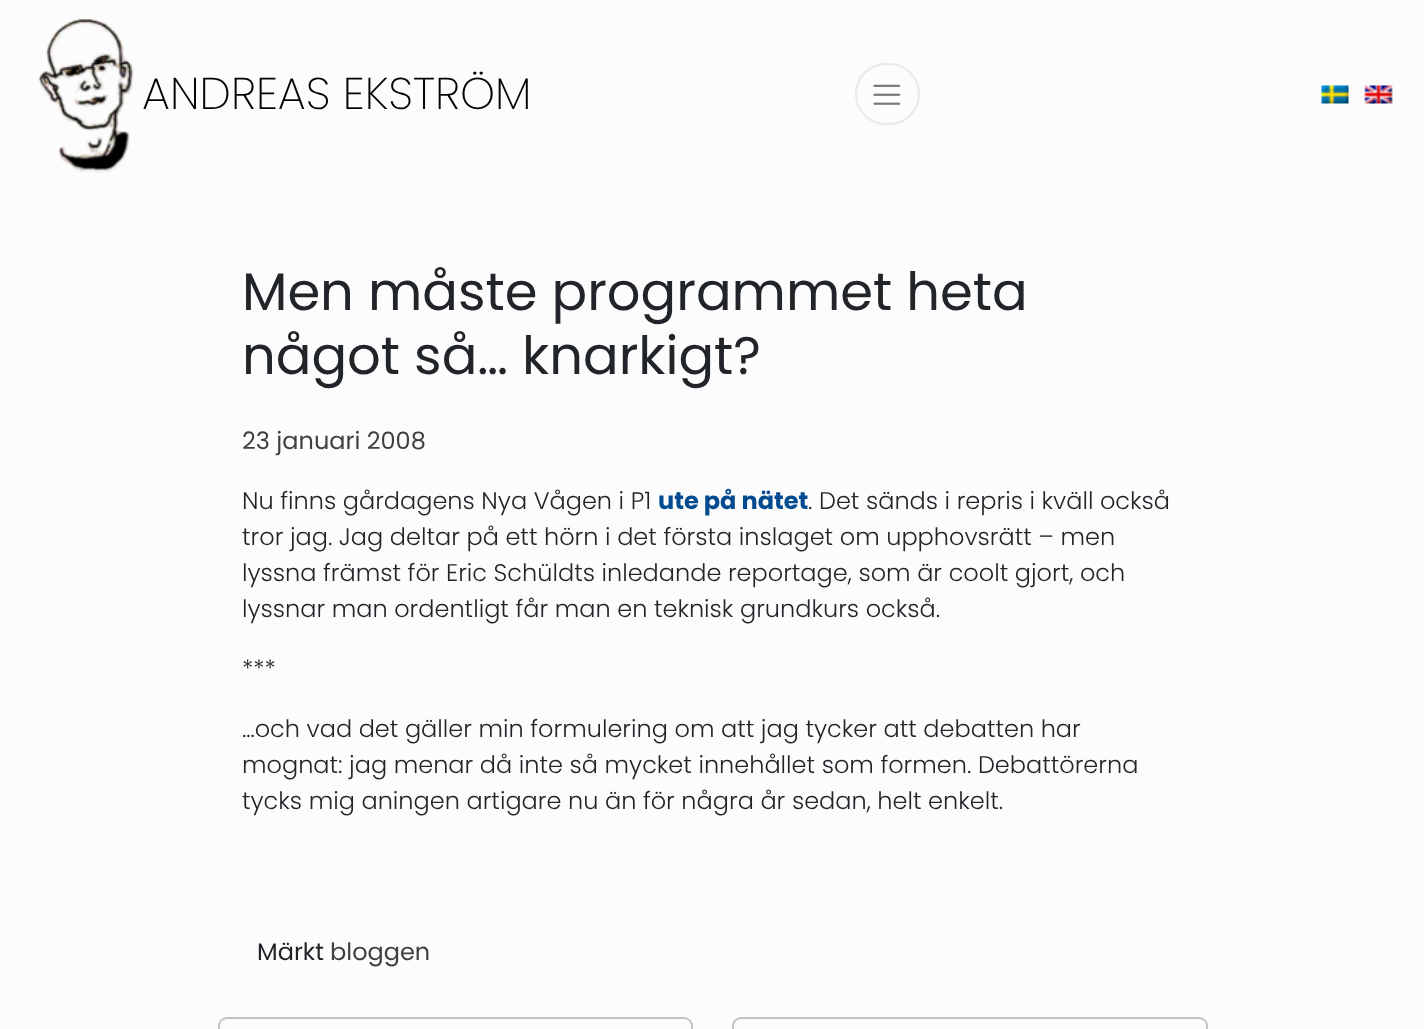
async function draw(canvas) {
	canvas.width = 1424;
	canvas.height = 1029;
	const c = canvas.getContext('2d');
	c.miterLimit = 4;
	c.fontKerning = 'normal';
	async function loadImage(src) {
		const img = new Image();
		img.src = src;
		await img.decode();
		return img;
	}

	c.fillStyle = '#fcfcfc';
	c.fillRect(0, 0, 1424, 1029);
	c.drawImage(await loadImage('img1.png'), 38, 18, 96, 155);
	c.font = '200 44.5px Poppins';
	c.fillStyle = '#050202';
	c.fillText('ANDREAS EKSTRÖM', 142, 109);
	c.beginPath();
	c.roundRect(856, 64, 63, 60, 30);
	c.strokeStyle = '#e9e9e9';
	c.lineWidth = 2;
	c.stroke();
	c.drawImage(await loadImage('img2.png'), 873, 84, 28, 21);
	c.drawImage(await loadImage('img3.png'), 1321, 85, 28, 19);
	c.drawImage(await loadImage('img4.png'), 1364, 85, 29, 19);
	c.font = '52.75px Poppins';
	c.fillStyle = '#212529';
	c.fillText('Men måste programmet heta', 242, 310);
	c.fillText('något så… knarkigt?', 242, 374);
	c.font = '24px Poppins';
	c.fillStyle = '#3f3f3f';
	c.fillText('23 januari 2008', 242, 449);
	c.font = '300 24px Poppins';
	c.fillStyle = '#212529';
	c.fillText('Nu finns gårdagens Nya Vågen i P1', 242, 509);
	c.font = 'bold 24px Poppins';
	c.fillStyle = '#024b90';
	c.fillText('ute på nätet', 658, 509);
	c.font = '300 24px Poppins';
	c.fillStyle = '#212529';
	for (const [text, x, y] of [
		['. Det sänds i repris i kväll också', 808, 509],
		['tror jag. Jag deltar på ett hörn i det första inslaget om upphovsrätt – men', 242, 545],
		['lyssna främst för Eric Schüldts inledande reportage, som är coolt gjort, och', 242, 581],
		['lyssnar man ordentligt får man en teknisk grundkurs också.', 242, 617],
		['***', 242, 677],
		['…och vad det gäller min formulering om att jag tycker att debatten har', 242, 737],
		['mognat: jag menar då inte så mycket innehållet som formen. Debattörerna', 242, 773],
		['tycks mig aningen artigare nu än för några år sedan, helt enkelt.', 242, 809],
	]) {
		c.fillText(text, x, y);
	}
	c.font = '24px Poppins';
	c.fillText('Märkt', 257, 960);
	c.fillStyle = '#3f3f3f';
	c.fillText('bloggen', 330, 960);
	c.beginPath();
	c.roundRect(219, 1018, 473, 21, 8);
	c.strokeStyle = '#c3c3c3';
	c.stroke();
	c.beginPath();
	c.roundRect(733, 1018, 474, 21, 8);
	c.stroke();
}

draw(document.querySelector('canvas'));
